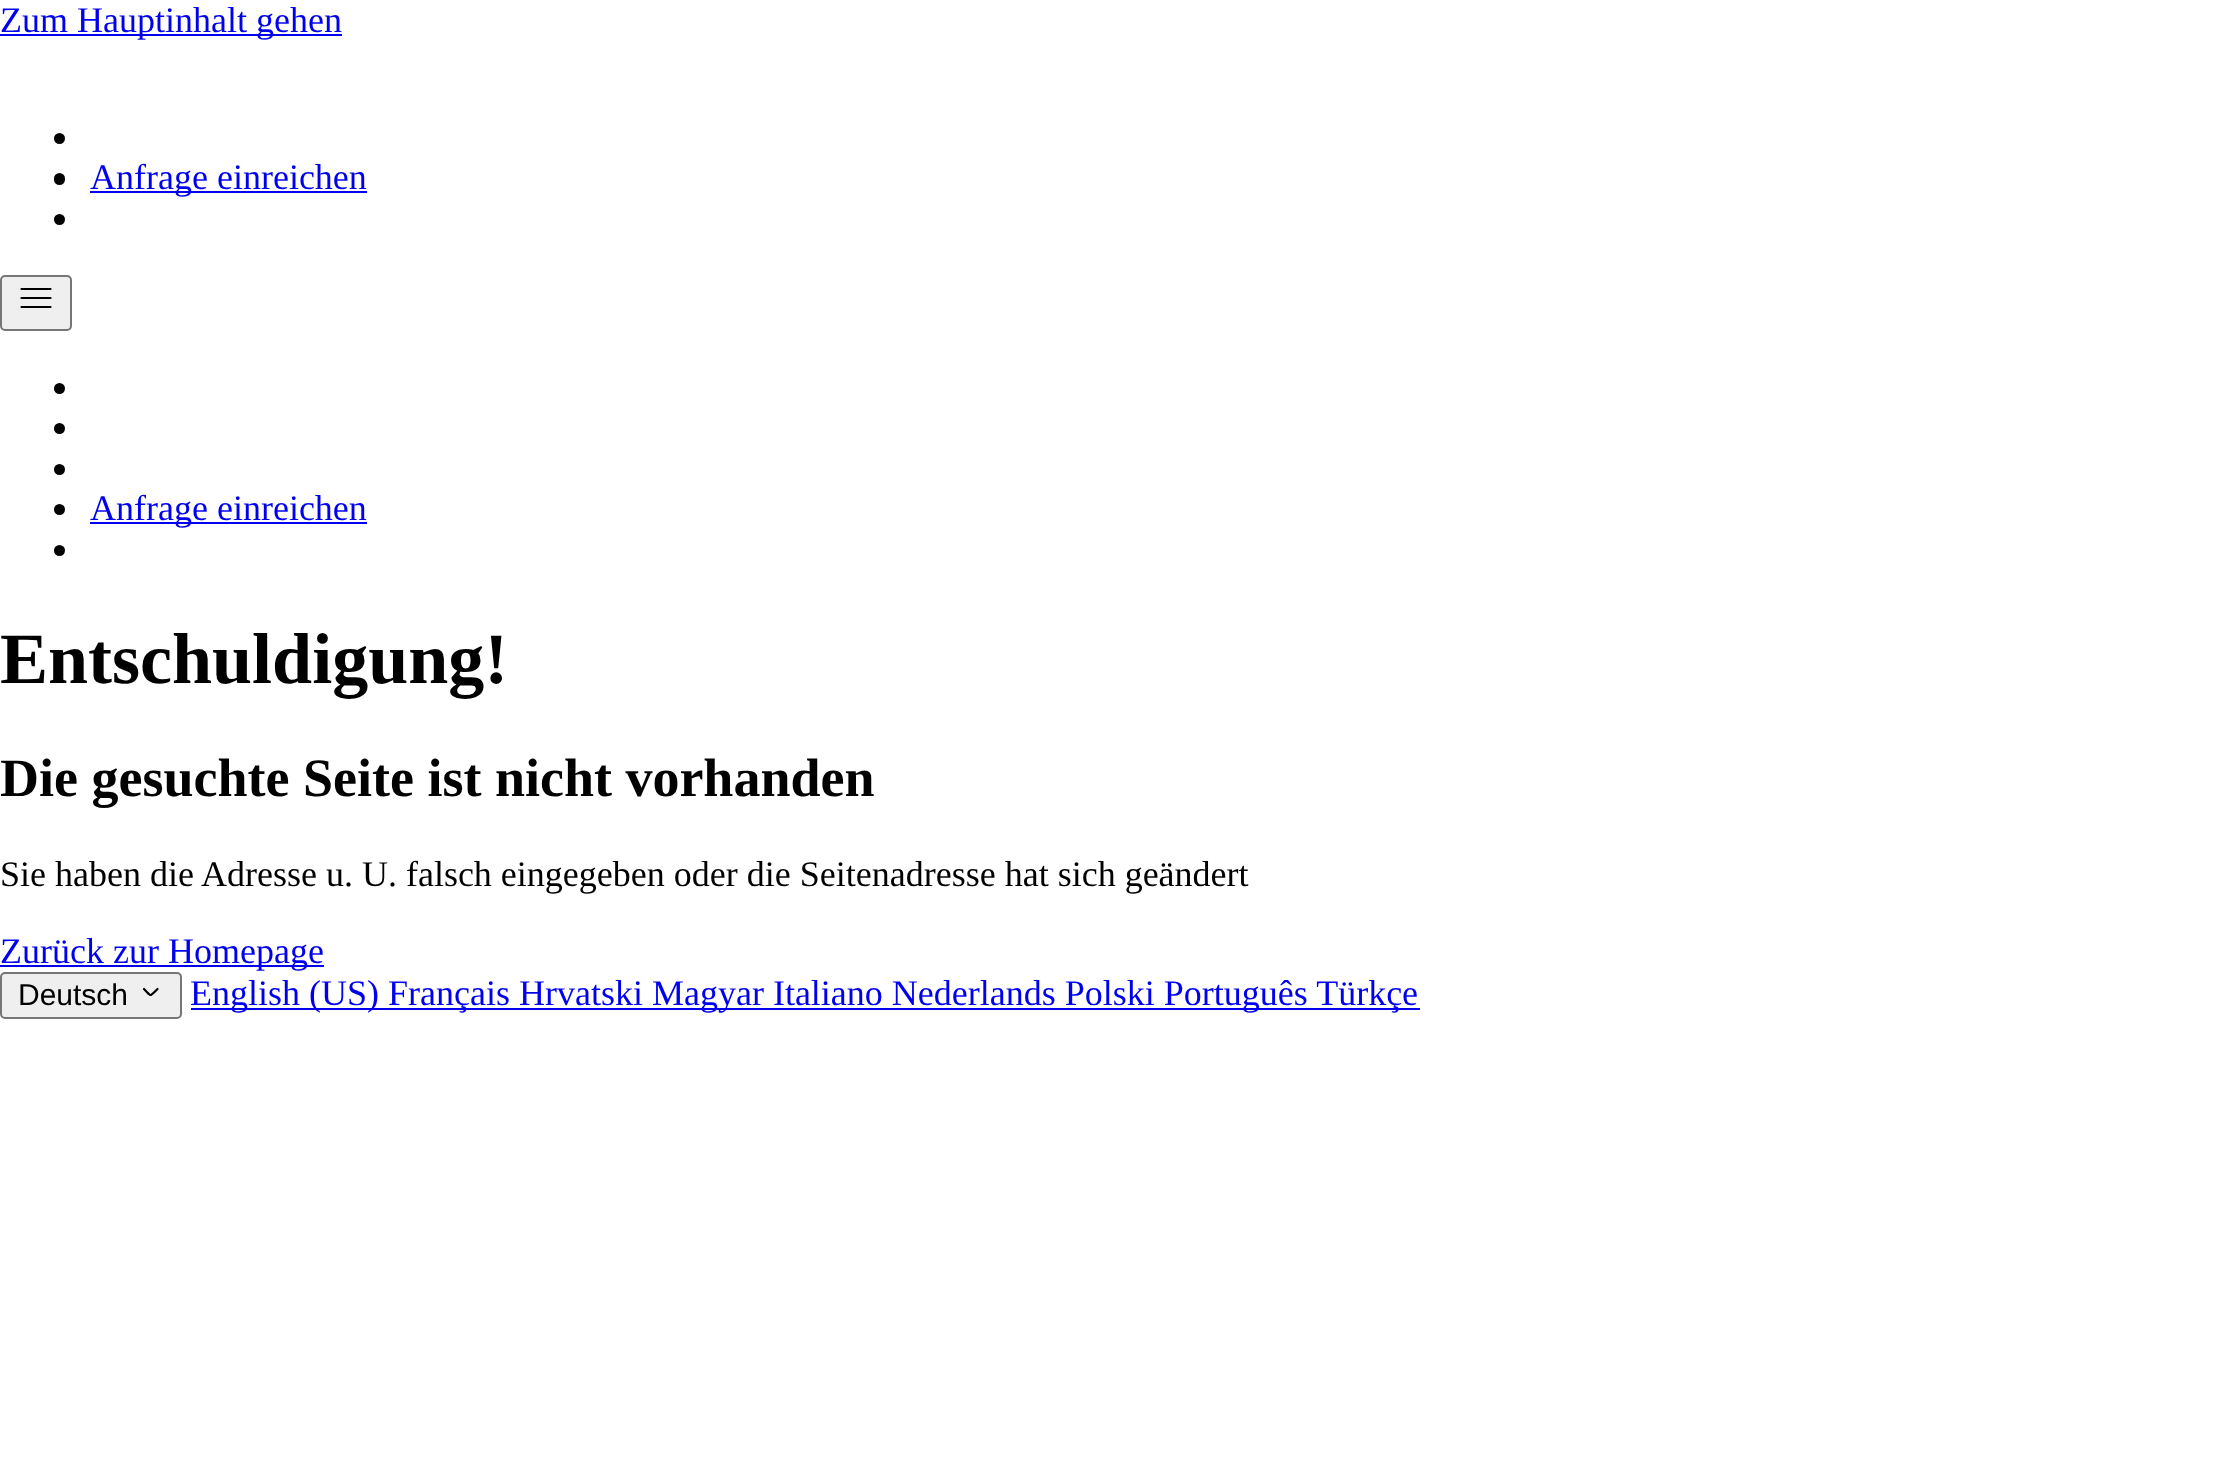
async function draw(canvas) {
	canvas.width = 2227;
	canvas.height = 1467;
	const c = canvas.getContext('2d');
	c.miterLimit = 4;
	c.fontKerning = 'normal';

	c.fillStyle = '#fff';
	c.fillRect(0, 0, 2227, 1467);
	c.fillStyle = '#00e';
	c.fillRect(0, 34, 342, 2);
	c.font = '36px Liberation Serif';
	c.fillText('Zum Hauptinhalt gehen', 0, 32);
	c.fillStyle = '#000';
	c.beginPath();
	c.arc(59.5, 138.5, 5.5, 0, 2 * Math.PI);
	c.fill();
	c.beginPath();
	c.roundRect(54, 173, 11, 12, 5.5);
	c.fill();
	c.fillStyle = '#00e';
	c.fillRect(90, 191, 277, 2);
	c.fillText('Anfrage einreichen', 90, 189);
	c.fillStyle = '#000';
	c.beginPath();
	c.arc(59.5, 219.5, 5.5, 0, 2 * Math.PI);
	c.fill();
	c.fillStyle = '#efefef';
	c.beginPath();
	c.roundRect(1, 276, 70, 54, 4);
	c.fill();
	c.strokeStyle = '#767676';
	c.lineWidth = 2;
	c.stroke();
	c.beginPath();
	c.moveTo(21.5, 289);
	c.lineTo(50.5, 289);
	c.moveTo(21.5, 298);
	c.lineTo(50.5, 298);
	c.moveTo(21.5, 307);
	c.lineTo(50.5, 307);
	c.strokeStyle = '#000';
	c.lineWidth = 2.2;
	c.lineCap = 'round';
	c.stroke();
	c.fillStyle = '#000';
	c.beginPath();
	c.arc(59.5, 388.5, 5.5, 0, 2 * Math.PI);
	c.fill();
	c.beginPath();
	c.arc(59.5, 428.5, 5.5, 0, 2 * Math.PI);
	c.fill();
	c.beginPath();
	c.arc(59.5, 469.5, 5.5, 0, 2 * Math.PI);
	c.fill();
	c.beginPath();
	c.arc(59.5, 509.5, 5.5, 0, 2 * Math.PI);
	c.fill();
	c.fillStyle = '#00e';
	c.fillRect(90, 522, 277, 2);
	c.fillText('Anfrage einreichen', 90, 520);
	c.fillStyle = '#000';
	c.beginPath();
	c.arc(59.5, 550.5, 5.5, 0, 2 * Math.PI);
	c.fill();
	c.font = 'bold 72px Liberation Serif';
	c.fillText('Entschuldigung!', 0, 683);
	c.font = 'bold 54px Liberation Serif';
	c.fillText('Die gesuchte Seite ist nicht vorhanden', 0, 796);
	c.font = '36px Liberation Serif';
	c.fillText('Sie haben die Adresse u. U. falsch eingegeben oder die Seitenadresse hat sich geändert', 0, 886);
	c.fillStyle = '#00e';
	c.fillRect(0, 965, 324, 2);
	c.fillText('Zurück zur Homepage', 0, 963);
	c.fillStyle = '#efefef';
	c.beginPath();
	c.roundRect(1, 973, 180, 45, 4);
	c.fill();
	c.strokeStyle = '#767676';
	c.lineWidth = 2;
	c.stroke();
	c.font = '30px Liberation Sans';
	c.fillStyle = '#000';
	c.fillText('Deutsch', 18, 1005);
	c.beginPath();
	c.moveTo(144, 989);
	c.bezierCurveTo(152, 997, 149, 997, 157.5, 989);
	c.strokeStyle = '#000';
	c.lineWidth = 2.2;
	c.stroke();
	c.fillStyle = '#00e';
	c.fillRect(191, 1008, 1229, 2);
	c.font = '36px Liberation Serif';
	c.fillText('English (US) Français Hrvatski Magyar Italiano Nederlands Polski Português Türkçe', 190, 1005);
}

draw(document.querySelector('canvas'));
